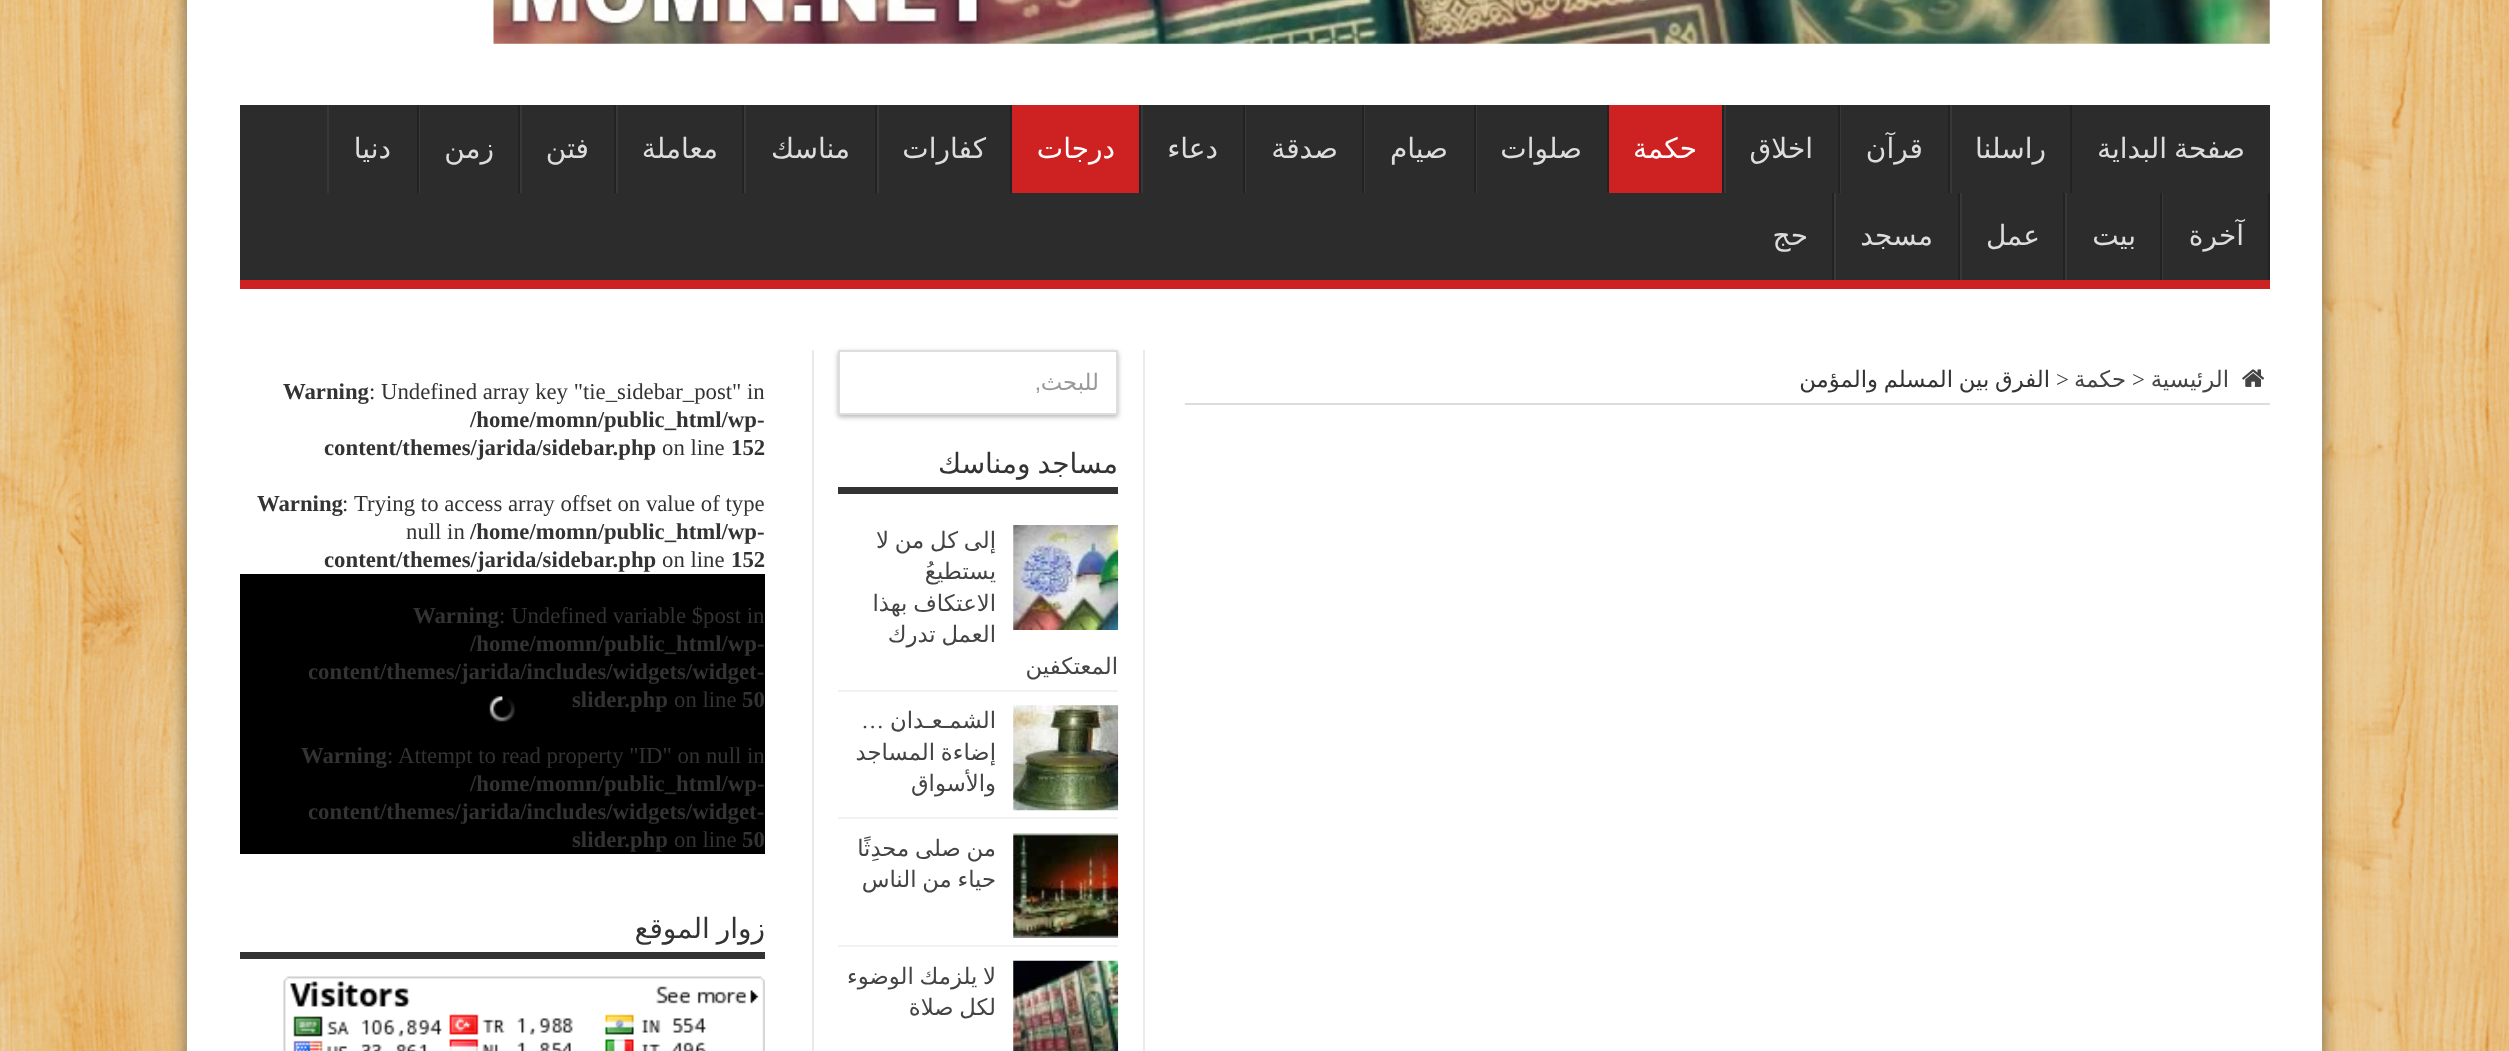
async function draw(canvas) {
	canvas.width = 2509;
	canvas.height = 1051;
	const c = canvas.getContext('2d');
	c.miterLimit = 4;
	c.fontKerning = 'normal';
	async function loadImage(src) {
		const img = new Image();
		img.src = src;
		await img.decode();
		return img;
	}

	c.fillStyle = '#fff';
	c.fillRect(0, 0, 2509, 1051);
	c.drawImage(await loadImage('img1.png'), 0, 0, 2509, 1051);
	c.fillStyle = '#00000080';
	c.filter = 'blur(9px)';
	c.beginPath();
	c.rect(187, -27, 2135, 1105);
	c.fill();
	c.filter = 'none';
	c.fillStyle = '#fff';
	c.fillRect(187, 0, 2135, 1051);
	c.drawImage(await loadImage('img2.png'), 493, 0, 1777, 44);
	for (const [x, y, w, h, color] of [
		[240, 105, 2030, 175, '#2c2c2c'],
		[240, 280, 2030, 9, '#cd2122'],
		[417, 105, 2, 88, '#222'],
		[327, 105, 2, 88, '#383838'],
	]) {
		c.fillStyle = color;
		c.fillRect(x, y, w, h);
	}
	c.direction = 'rtl';
	c.font = '28px DejaVu Sans';
	c.fillStyle = '#ddd';
	c.fillText('دنيا', 391, 158);
	c.fillStyle = '#222';
	c.fillRect(518, 105, 2, 88);
	c.fillStyle = '#383838';
	c.fillRect(419, 105, 1, 88);
	c.fillStyle = '#ddd';
	c.fillText('زمن', 494, 158);
	c.fillStyle = '#222';
	c.fillRect(614, 105, 2, 88);
	c.fillStyle = '#383838';
	c.fillRect(520, 105, 2, 88);
	c.fillStyle = '#ddd';
	c.fillText('فتن', 589, 158);
	c.fillStyle = '#222';
	c.fillRect(742, 105, 2, 88);
	c.fillStyle = '#383838';
	c.fillRect(616, 105, 2, 88);
	c.fillStyle = '#ddd';
	c.fillText('معاملة', 718, 158);
	c.fillStyle = '#222';
	c.fillRect(875, 105, 2, 88);
	c.fillStyle = '#383838';
	c.fillRect(744, 105, 2, 88);
	c.fillStyle = '#ddd';
	c.fillText('مناسك', 850, 158);
	c.fillStyle = '#222';
	c.fillRect(1010, 105, 2, 88);
	c.fillStyle = '#383838';
	c.fillRect(877, 105, 2, 88);
	c.fillStyle = '#ddd';
	c.fillText('كفارات', 986, 158);
	c.fillStyle = '#222';
	c.fillRect(1139, 105, 2, 88);
	c.fillStyle = '#cd2122';
	c.fillRect(1012, 105, 127, 88);
	c.fillStyle = '#fff';
	c.fillText('درجات', 1115, 158);
	c.fillStyle = '#222';
	c.fillRect(1243, 105, 2, 88);
	c.fillStyle = '#383838';
	c.fillRect(1141, 105, 2, 88);
	c.fillStyle = '#ddd';
	c.fillText('دعاء', 1218, 158);
	c.fillStyle = '#222';
	c.fillRect(1362, 105, 2, 88);
	c.fillStyle = '#383838';
	c.fillRect(1245, 105, 1, 88);
	c.fillStyle = '#ddd';
	c.fillText('صدقة', 1338, 158);
	c.fillStyle = '#222';
	c.fillRect(1474, 105, 2, 88);
	c.fillStyle = '#383838';
	c.fillRect(1364, 105, 1, 88);
	c.fillStyle = '#ddd';
	c.fillText('صيام', 1448, 158);
	c.fillStyle = '#222';
	c.fillRect(1607, 105, 2, 88);
	c.fillStyle = '#383838';
	c.fillRect(1476, 105, 1, 88);
	c.fillStyle = '#ddd';
	c.fillText('صلوات', 1582, 158);
	c.fillStyle = '#222';
	c.fillRect(1722, 105, 2, 88);
	c.fillStyle = '#cd2122';
	c.fillRect(1609, 105, 113, 88);
	c.fillStyle = '#fff';
	c.fillText('حكمة', 1697, 158);
	c.fillStyle = '#222';
	c.fillRect(1838, 105, 2, 88);
	c.fillStyle = '#383838';
	c.fillRect(1724, 105, 2, 88);
	c.fillStyle = '#ddd';
	c.fillText('اخلاق', 1813, 158);
	c.fillStyle = '#222';
	c.fillRect(1948, 105, 2, 88);
	c.fillStyle = '#383838';
	c.fillRect(1840, 105, 1, 88);
	c.fillStyle = '#ddd';
	c.fillText('قرآن', 1923, 158);
	c.fillStyle = '#222';
	c.fillRect(2070, 105, 2, 88);
	c.fillStyle = '#383838';
	c.fillRect(1950, 105, 2, 88);
	c.fillStyle = '#ddd';
	c.fillText('راسلنا', 2046, 158);
	c.wordSpacing = '-2px';
	c.fillText('صفحة البداية', 2245, 158);
	c.fillStyle = '#222';
	c.fillRect(1832, 193, 2, 87);
	c.wordSpacing = '0px';
	c.fillStyle = '#ddd';
	c.fillText('حج', 1808, 245);
	c.fillStyle = '#222';
	c.fillRect(1958, 193, 2, 87);
	c.fillStyle = '#383838';
	c.fillRect(1834, 193, 2, 87);
	c.fillStyle = '#ddd';
	c.fillText('مسجد', 1933, 245);
	c.fillStyle = '#222';
	c.fillRect(2063, 193, 2, 87);
	c.fillStyle = '#383838';
	c.fillRect(1960, 193, 2, 87);
	c.fillStyle = '#ddd';
	c.fillText('عمل', 2040, 245);
	c.fillStyle = '#222';
	c.fillRect(2160, 193, 2, 87);
	c.fillStyle = '#383838';
	c.fillRect(2065, 193, 2, 87);
	c.fillStyle = '#ddd';
	c.fillText('بيت', 2136, 245);
	c.fillStyle = '#222';
	c.fillRect(2268, 193, 2, 87);
	c.fillStyle = '#383838';
	c.fillRect(2162, 193, 1, 87);
	c.fillStyle = '#ddd';
	c.fillText('آخرة', 2244, 245);
	c.direction = 'ltr';
	c.font = 'bold 22.75px Liberation Serif';
	c.fillStyle = '#333';
	c.fillText('Warning', 283, 399);
	c.font = '22.75px Liberation Serif';
	c.fillText(': Undefined array key "tie_sidebar_post" in', 369, 399);
	c.font = 'bold 22.75px Liberation Serif';
	c.fillText('/home/momn/public_html/wp-', 470, 427);
	c.fillText('content/themes/jarida/sidebar.php', 324, 455);
	c.font = '22.75px Liberation Serif';
	c.fillText('on line', 662, 455);
	c.font = 'bold 22.75px Liberation Serif';
	c.fillText('152', 731, 455);
	c.fillText('Warning', 257, 511);
	c.font = '22.75px Liberation Serif';
	for (const [text, x, y] of [
		[':', 342, 511],
		['Trying to access array offset on value of type', 354, 511],
		['null in', 406, 539],
	]) {
		c.fillText(text, x, y);
	}
	c.font = 'bold 22.75px Liberation Serif';
	c.fillText('/home/momn/public_html/wp-', 470, 539);
	c.fillText('content/themes/jarida/sidebar.php', 324, 567);
	c.font = '22.75px Liberation Serif';
	c.fillText('on line', 662, 567);
	c.font = 'bold 22.75px Liberation Serif';
	c.fillText('152', 731, 567);
	c.fillStyle = '#000';
	c.fillRect(240, 574, 525, 280);
	c.drawImage(await loadImage('img3.png'), 489, 696, 26, 26);
	c.fillStyle = '#333';
	c.fillText('Warning', 413, 623);
	c.font = '22.75px Liberation Serif';
	c.fillText(': Undefined variable $post in', 499, 623);
	c.font = 'bold 22.75px Liberation Serif';
	for (const [text, x, y] of [
		['/home/momn/public_html/wp-', 470, 651],
		['content/themes/jarida/includes/widgets/widget-', 308, 679],
		['slider.php', 572, 707],
	]) {
		c.fillText(text, x, y);
	}
	c.font = '22.75px Liberation Serif';
	c.fillText('on line', 674, 707);
	c.font = 'bold 22.75px Liberation Serif';
	c.fillText('50', 742, 707);
	c.fillText('Warning', 301, 763);
	c.font = '22.75px Liberation Serif';
	c.fillText(':', 387, 763);
	c.fillText('Attempt to read property "ID" on null in', 398, 763);
	c.font = 'bold 22.75px Liberation Serif';
	for (const [text, x, y] of [
		['/home/momn/public_html/wp-', 470, 791],
		['content/themes/jarida/includes/widgets/widget-', 308, 819],
		['slider.php', 572, 847],
	]) {
		c.fillText(text, x, y);
	}
	c.font = '22.75px Liberation Serif';
	c.fillText('on line', 674, 847);
	c.font = 'bold 22.75px Liberation Serif';
	c.fillText('50', 742, 847);
	c.fillRect(240, 952, 525, 7);
	c.wordSpacing = '-2px';
	c.direction = 'rtl';
	c.font = '28px DejaVu Sans';
	c.fillText('زوار الموقع', 765, 938);
	c.drawImage(await loadImage('img4.png'), 283, 976, 482, 75);
	c.fillStyle = '#eaeaea';
	c.fillRect(1143, 350, 2, 701);
	c.fillRect(812, 350, 2, 701);
	c.fillStyle = '#b5b5b5';
	c.filter = 'blur(2.5px)';
	c.beginPath();
	c.roundRect(838, 352, 280, 65, 2);
	c.fill();
	c.filter = 'none';
	c.fillStyle = '#fff';
	c.beginPath();
	c.roundRect(839, 351, 278, 63, 1);
	c.fill();
	c.strokeStyle = '#ddd';
	c.lineWidth = 2;
	c.stroke();
	c.wordSpacing = '0px';
	c.font = '22.75px Liberation Sans';
	c.fillStyle = '#999';
	c.fillText(',', 1041, 390);
	c.font = '22.75px DejaVu Sans';
	c.fillText('للبحث', 1099, 390);
	c.fillStyle = '#333';
	c.fillRect(838, 487, 280, 7);
	c.wordSpacing = '-2px';
	c.font = '28px DejaVu Sans';
	c.fillText('مساجد ومناسك', 1118, 473);
	c.fillStyle = '#f2f2f2';
	c.fillRect(838, 690, 280, 2);
	c.drawImage(await loadImage('img5.png'), 1013, 525, 106, 105);
	c.wordSpacing = '-1.5px';
	c.font = '22.75px DejaVu Sans';
	c.fillStyle = '#444';
	c.fillText('إلى كل من لا', 996, 548);
	c.wordSpacing = '0px';
	c.fillText('يستطيعُ', 996, 579);
	c.wordSpacing = '-1.5px';
	c.fillText('الاعتكاف بهذا', 996, 611);
	c.fillText('العمل تدرك', 996, 642);
	c.wordSpacing = '0px';
	c.fillText('المعتكفين', 1118, 674);
	c.fillStyle = '#f2f2f2';
	c.fillRect(838, 817, 280, 2);
	c.font = '22.75px Liberation Serif';
	c.fillStyle = '#444';
	c.fillText('…', 884, 728);
	c.font = '22.75px DejaVu Sans';
	c.fillText('الشمـعـدان', 996, 728);
	c.wordSpacing = '-1.5px';
	c.fillText('إضاءة المساجد', 996, 760);
	c.wordSpacing = '0px';
	c.fillText('والأسواق', 996, 791);
	c.drawImage(await loadImage('img6.png'), 1013, 705, 106, 106);
	c.fillStyle = '#f2f2f2';
	c.fillRect(838, 945, 280, 2);
	c.wordSpacing = '-1.5px';
	c.fillStyle = '#444';
	c.fillText('من صلى محدِثًا', 996, 856);
	c.fillText('حياء من الناس', 996, 887);
	c.drawImage(await loadImage('img7.png'), 1013, 833, 106, 105);
	c.fillText('لا يلزمك الوضوء', 996, 984);
	c.fillText('لكل صلاة', 996, 1015);
	c.drawImage(await loadImage('img8.png'), 1013, 960, 106, 91);
	c.fillStyle = '#ddd';
	c.fillRect(1185, 403, 1085, 2);
	c.fillStyle = '#333';
	c.fillText('الفرق بين المسلم والمؤمن', 2050, 387);
	c.wordSpacing = '0px';
	c.direction = 'ltr';
	c.font = '22.75px Liberation Serif';
	c.fillText('>', 2056, 387);
	c.direction = 'rtl';
	c.font = '22.75px DejaVu Sans';
	c.fillStyle = '#444';
	c.fillText('حكمة', 2126, 387);
	c.direction = 'ltr';
	c.font = '22.75px Liberation Serif';
	c.fillStyle = '#333';
	c.fillText('>', 2132, 387);
	c.direction = 'rtl';
	c.font = '22.75px DejaVu Sans';
	c.fillStyle = '#444';
	c.fillText('الرئيسية', 2229, 387);
	c.drawImage(await loadImage('img9.png'), 2242, 369, 23, 18);
}

draw(document.querySelector('canvas'));
